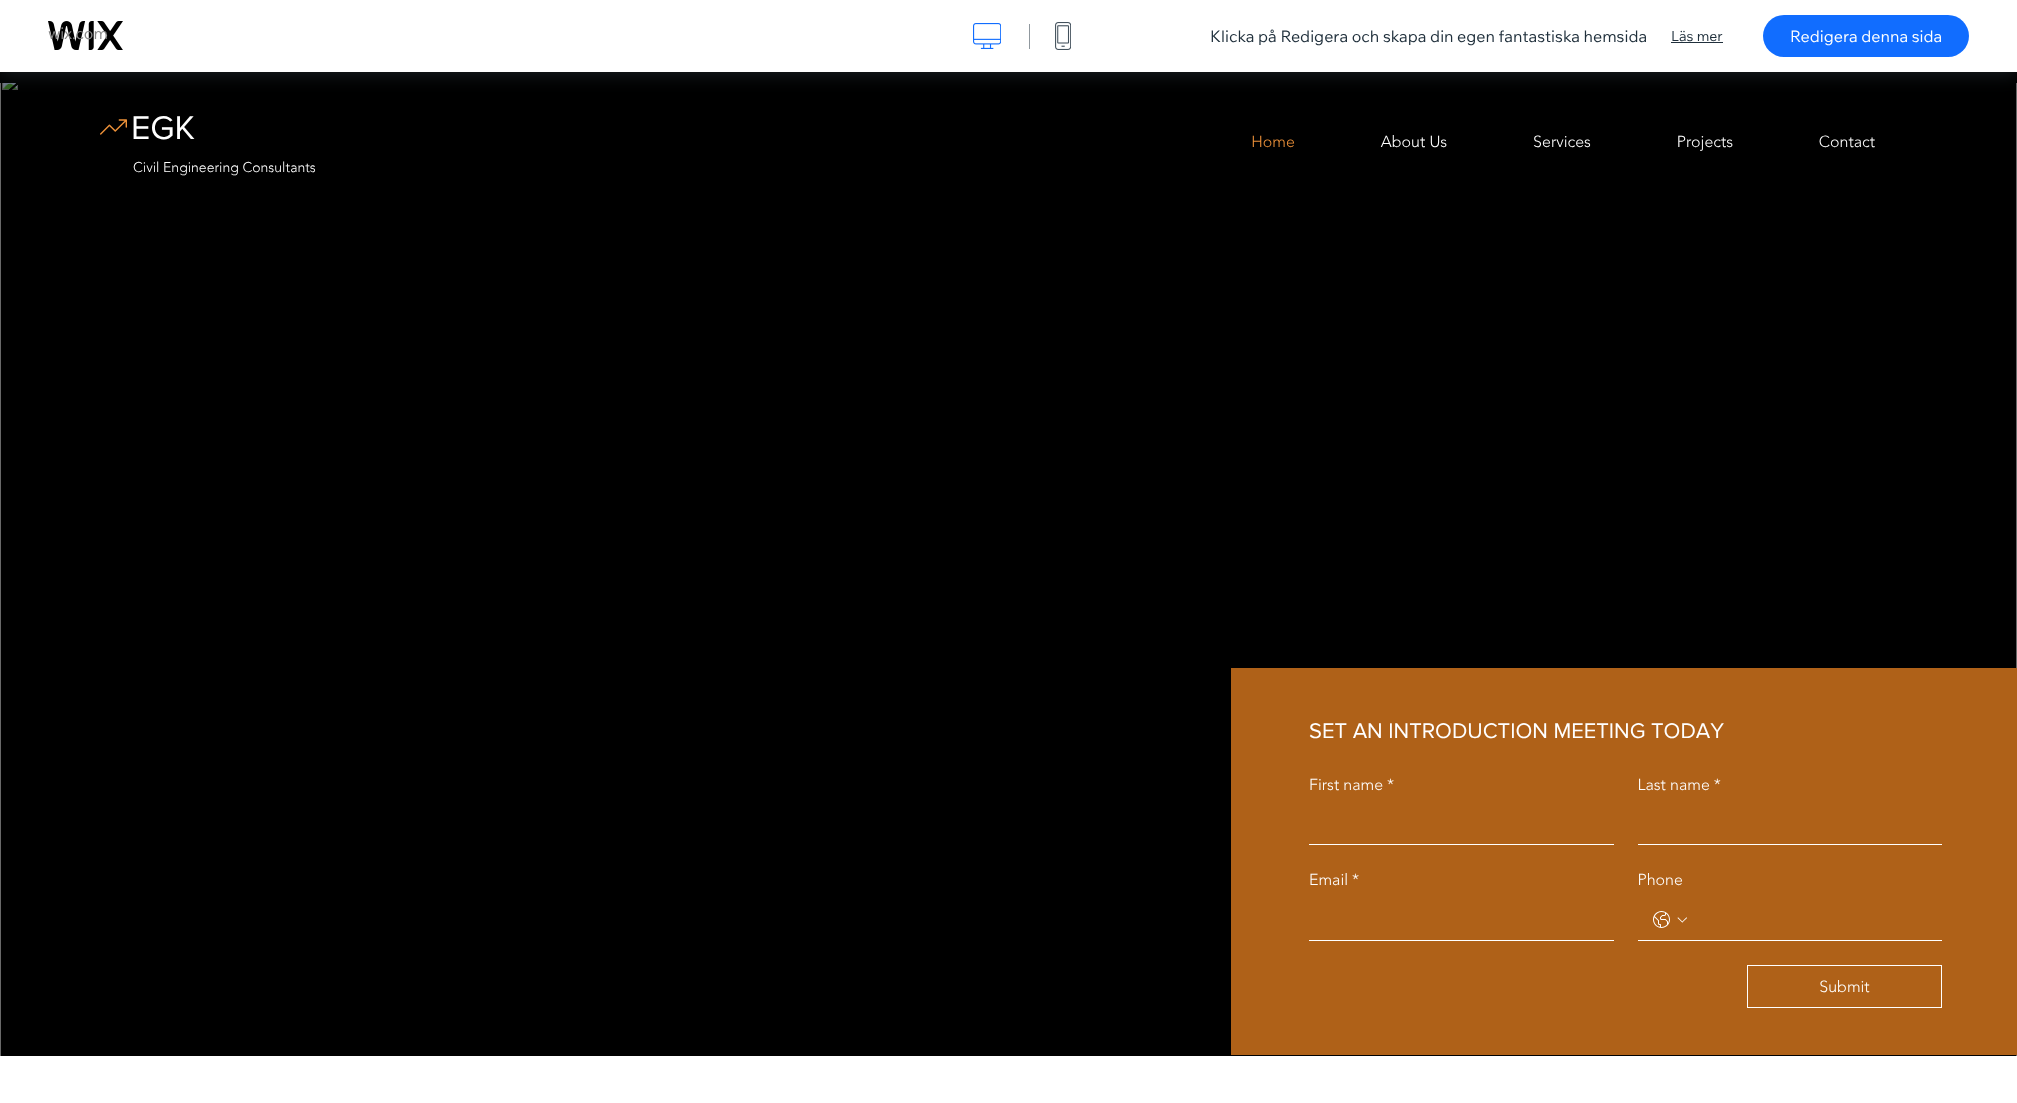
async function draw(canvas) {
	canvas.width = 2017;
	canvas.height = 1103;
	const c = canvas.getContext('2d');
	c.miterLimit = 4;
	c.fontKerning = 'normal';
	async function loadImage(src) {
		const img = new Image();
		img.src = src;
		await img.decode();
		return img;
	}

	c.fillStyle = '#fff';
	c.fillRect(0, 0, 2017, 1103);
	c.drawImage(await loadImage('img4.png'), 0, 72, 2017, 1031);
	c.fillStyle = '#81a2b633';
	c.filter = 'blur(9px)';
	c.beginPath();
	c.rect(0, 2, 2017, 72);
	c.fill();
	c.filter = 'none';
	c.fillStyle = '#fff';
	c.fillRect(0, 0, 2017, 72);
	c.drawImage(await loadImage('img1.png'), 48, 21, 75, 29);
	c.font = '16px Wix Madefor Text';
	c.fillStyle = '#888';
	c.fillText('wix.com', 48, 39);
	c.drawImage(await loadImage('img2.png'), 973, 23, 28, 26);
	c.fillStyle = '#90989e';
	c.fillRect(1029, 24, 1, 25);
	c.drawImage(await loadImage('img3.png'), 1055, 22, 16, 28);
	c.fillStyle = '#20303c';
	c.fillText('Klicka på Redigera och skapa din egen fantastiska hemsida', 1210, 42);
	c.font = '14px Wix Madefor Text';
	c.fillText('Läs mer', 1671, 41);
	c.fillRect(1671, 42, 52, 1);
	c.fillStyle = '#116dff';
	c.beginPath();
	c.roundRect(1763, 15, 206, 42, 21);
	c.fill();
	c.font = '16px Wix Madefor Text';
	c.fillStyle = '#fff';
	c.fillText('Redigera denna sida', 1790, 42);
}

draw(document.querySelector('canvas'));
